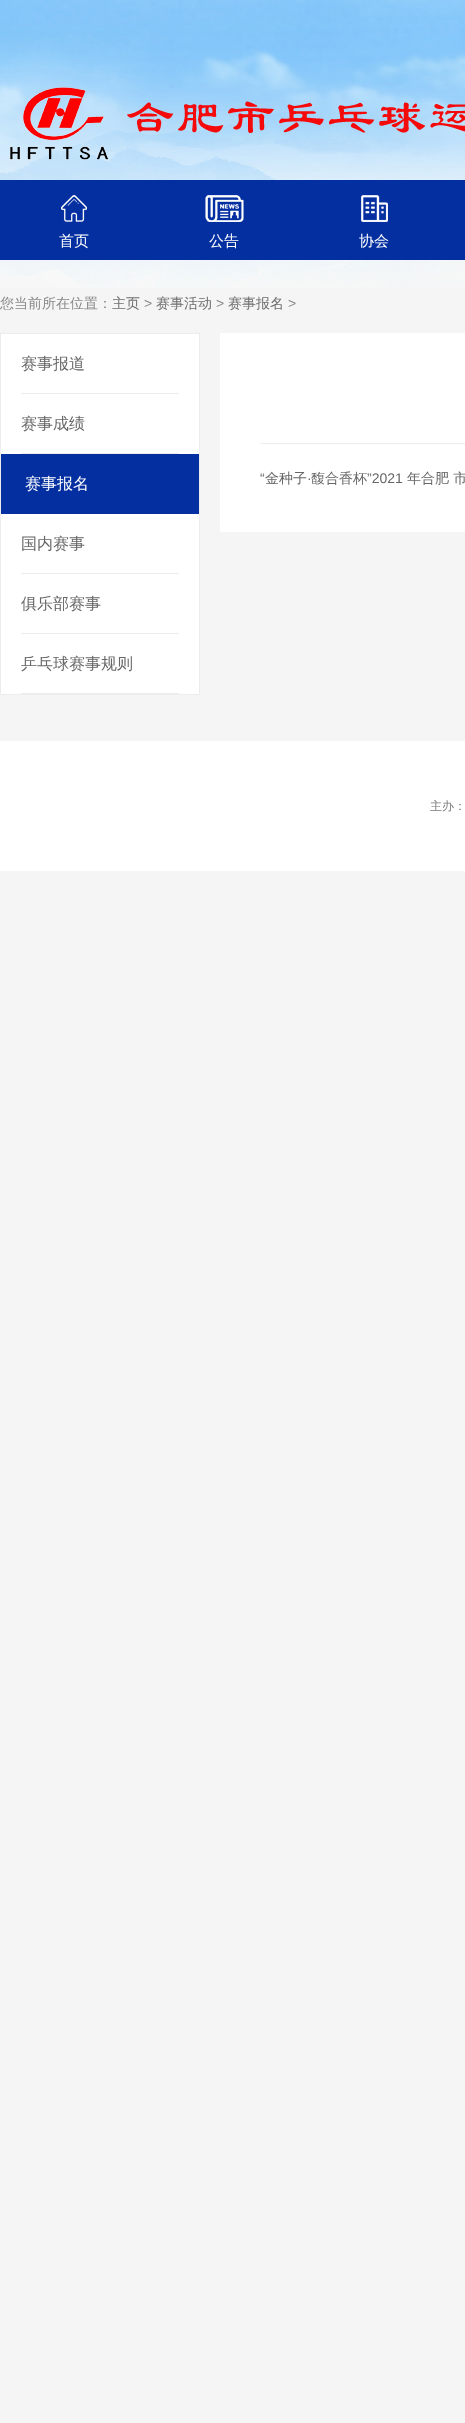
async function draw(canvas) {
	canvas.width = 465;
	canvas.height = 2423;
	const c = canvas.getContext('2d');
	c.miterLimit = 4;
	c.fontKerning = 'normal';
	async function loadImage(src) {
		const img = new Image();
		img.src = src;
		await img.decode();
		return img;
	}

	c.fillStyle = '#f5f5f5';
	c.fillRect(0, 0, 465, 2423);
	c.drawImage(await loadImage('img1.png'), 0, 0, 465, 288);
	c.drawImage(await loadImage('img2.png'), 10, 87, 455, 73);
	c.fillStyle = '#042fa0';
	c.fillRect(0, 180, 465, 80);
	c.drawImage(await loadImage('img3.png'), 61, 195, 26, 27);
	c.font = '500 15px WenQuanYi Zen Hei';
	c.fillStyle = '#fff';
	c.fillText('首页', 59, 246);
	c.drawImage(await loadImage('img4.png'), 205, 195, 39, 27);
	c.fillText('公告', 209, 246);
	c.drawImage(await loadImage('img5.png'), 361, 195, 27, 27);
	c.fillText('协会', 359, 246);
	c.font = '500 14px WenQuanYi Zen Hei';
	c.fillStyle = '#888';
	c.fillText('您当前所在位置：', 0, 308);
	c.fillStyle = '#6e6e6e';
	c.fillText('主页', 112, 308);
	c.font = '14px Liberation Sans';
	c.fillStyle = '#888';
	c.fillText('>', 144, 308);
	c.font = '500 14px WenQuanYi Zen Hei';
	c.fillStyle = '#6e6e6e';
	c.fillText('赛事活动', 156, 308);
	c.font = '14px Liberation Sans';
	c.fillStyle = '#888';
	c.fillText('>', 216, 308);
	c.font = '500 14px WenQuanYi Zen Hei';
	c.fillStyle = '#6e6e6e';
	c.fillText('赛事报名', 228, 308);
	c.font = '14px Liberation Sans';
	c.fillStyle = '#888';
	c.fillText('>', 288, 308);
	c.strokeStyle = '#ededed';
	c.strokeRect(0.5, 333.5, 199, 361);
	c.fillStyle = '#fff';
	c.fillRect(1, 334, 198, 120);
	c.fillStyle = '#ededed';
	c.fillRect(21, 393, 158, 1);
	c.font = '500 16px WenQuanYi Zen Hei';
	c.fillStyle = '#666';
	c.fillText('赛事报道', 21, 369);
	c.fillStyle = '#ededed';
	c.fillRect(21, 453, 158, 1);
	c.fillStyle = '#666';
	c.fillText('赛事成绩', 21, 429);
	c.fillStyle = '#042fa0';
	c.fillRect(1, 454, 198, 60);
	c.fillStyle = '#fff';
	c.fillText('赛事报名', 25, 489);
	c.fillRect(1, 514, 198, 180);
	c.fillStyle = '#ededed';
	c.fillRect(21, 573, 158, 1);
	c.fillStyle = '#666';
	c.fillText('国内赛事', 21, 549);
	c.fillStyle = '#ededed';
	c.fillRect(21, 633, 158, 1);
	c.fillStyle = '#666';
	c.fillText('俱乐部赛事', 21, 609);
	c.fillStyle = '#ededed';
	c.fillRect(21, 693, 158, 1);
	c.fillStyle = '#666';
	c.fillText('乒乓球赛事规则', 21, 669);
	c.fillStyle = '#fff';
	c.fillRect(220, 333, 245, 199);
	c.fillStyle = '#ededed';
	c.fillRect(260, 443, 205, 1);
	c.font = '14px Liberation Sans';
	c.fillStyle = '#666';
	c.fillText('“', 260, 483);
	c.font = '500 14px WenQuanYi Zen Hei';
	c.fillText('金种子', 265, 483);
	c.font = '14px Liberation Sans';
	c.fillText('·', 307, 483);
	c.font = '500 14px WenQuanYi Zen Hei';
	c.fillText('馥合香杯', 311, 483);
	c.font = '14px Liberation Sans';
	c.fillText('”2021', 367, 483);
	c.font = '500 14px WenQuanYi Zen Hei';
	c.fillText('年合肥 市', 407, 483);
	c.fillStyle = '#fff';
	c.fillRect(0, 741, 465, 130);
	c.font = '500 12px WenQuanYi Zen Hei';
	c.fillStyle = '#787878';
	c.fillText('主办：', 430, 810);
}

draw(document.querySelector('canvas'));
